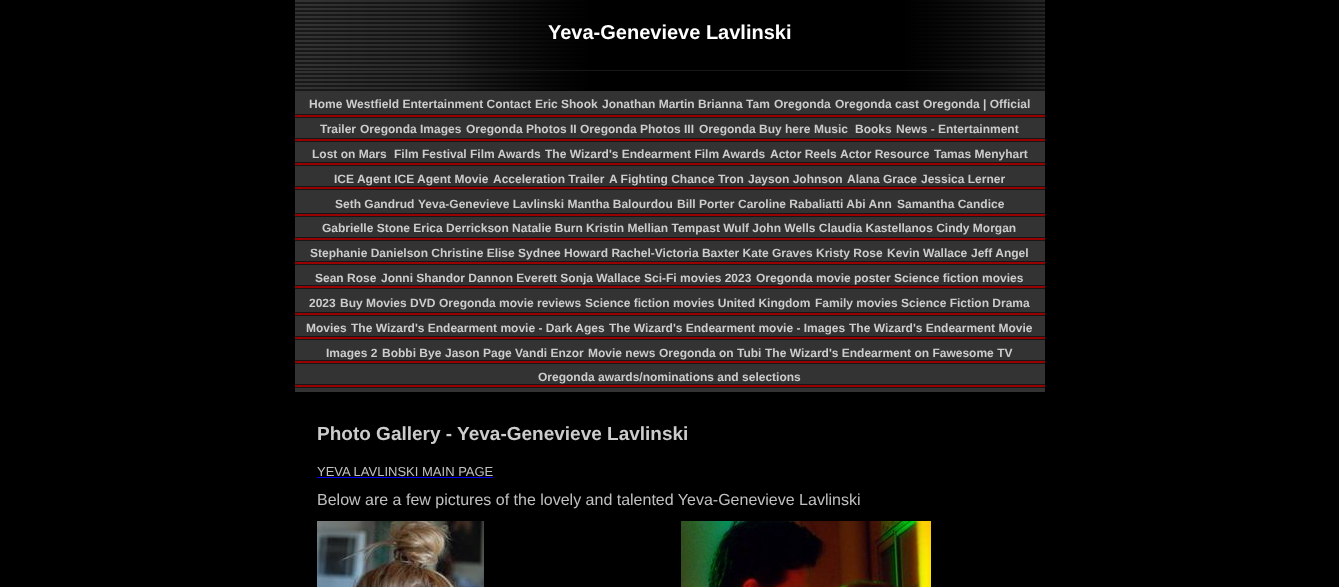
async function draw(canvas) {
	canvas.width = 1339;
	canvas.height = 587;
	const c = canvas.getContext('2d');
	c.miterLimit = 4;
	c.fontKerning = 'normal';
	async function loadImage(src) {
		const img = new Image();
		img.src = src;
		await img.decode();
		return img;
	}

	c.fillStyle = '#000';
	c.fillRect(0, 0, 1339, 587);
	c.drawImage(await loadImage('img1.png'), 295, 0, 750, 91);
	c.font = 'bold 20px Liberation Sans';
	c.fillStyle = '#fff';
	c.fillText('Yeva-Genevieve Lavlinski', 548, 39);
	c.drawImage(await loadImage('img2.png'), 295, 91, 750, 301);
	c.font = 'bold 12px Liberation Sans';
	c.fillStyle = '#ccc';
	for (const [text, x, y] of [
		['Home', 309, 108],
		['Westfield Entertainment Contact', 346, 108],
		['Eric Shook', 535, 108],
		['Jonathan Martin', 602, 108],
		['Brianna Tam', 698, 108],
		['Oregonda', 774, 108],
		['Oregonda cast', 835, 108],
		['Oregonda | Official', 923, 108],
		['Trailer', 320, 133],
		['Oregonda Images', 360, 133],
		['Oregonda Photos II', 466, 133],
		['Oregonda Photos III', 580, 133],
		['Oregonda Buy here', 699, 133],
		['Music', 814, 133],
		['Books', 855, 133],
		['News - Entertainment', 896, 133],
		['Lost on Mars', 312, 158],
		['Film Festival', 394, 158],
		['Film Awards', 470, 158],
		['The Wizard\'s Endearment Film Awards', 545, 158],
		['Actor Reels', 770, 158],
		['Actor Resource', 840, 158],
		['Tamas Menyhart', 934, 158],
		['ICE Agent ICE Agent Movie', 334, 183],
		['Acceleration Trailer', 493, 183],
		['A Fighting Chance Tron', 609, 183],
		['Jayson Johnson', 748, 183],
		['Alana Grace', 847, 183],
		['Jessica Lerner', 921, 183],
		['Seth Gandrud', 335, 208],
		['Yeva-Genevieve Lavlinski Mantha Balourdou', 418, 208],
		['Bill Porter', 677, 208],
		['Caroline Rabaliatti Abi Ann', 738, 208],
		['Samantha Candice', 897, 208],
		['Gabrielle Stone Erica Derrickson Natalie Burn Kristin Mellian Tempast Wulf John Wells Claudia Kastellanos Cindy Morgan', 322, 232],
		['Stephanie Danielson Christine Elise Sydnee Howard Rachel-Victoria Baxter Kate Graves', 310, 257],
		['Kristy Rose', 816, 257],
		['Kevin Wallace', 887, 257],
		['Jeff Angel', 971, 257],
		['Sean Rose', 315, 282],
		['Jonni Shandor Dannon Everett Sonja Wallace', 381, 282],
		['Sci-Fi movies 2023', 644, 282],
		['Oregonda movie poster', 756, 282],
		['Science fiction movies', 894, 282],
		['2023', 309, 307],
		['Buy Movies DVD', 340, 307],
		['Oregonda movie reviews', 439, 307],
		['Science fiction movies United Kingdom', 585, 307],
		['Family movies', 815, 307],
		['Science Fiction Drama', 901, 307],
		['Movies', 306, 332],
		['The Wizard\'s Endearment movie - Dark Ages', 351, 332],
		['The Wizard\'s Endearment movie - Images', 609, 332],
		['The Wizard\'s Endearment Movie', 849, 332],
		['Images 2', 326, 357],
		['Bobbi Bye', 382, 357],
		['Jason Page Vandi Enzor', 445, 357],
		['Movie news', 588, 357],
		['Oregonda on Tubi', 659, 357],
		['The Wizard\'s Endearment on Fawesome TV', 765, 357],
		['Oregonda awards/nominations and selections', 538, 381],
	]) {
		c.fillText(text, x, y);
	}
	c.font = 'bold 19px Liberation Sans';
	c.fillText('Photo Gallery - Yeva-Genevieve Lavlinski', 317, 440);
	c.font = '13px Liberation Sans';
	c.fillStyle = '#c0c0c0';
	c.fillText('YEVA LAVLINSKI MAIN PAGE', 317, 476);
	c.fillStyle = '#00e';
	c.fillRect(317, 477, 176, 1);
	c.font = '16px Liberation Sans';
	c.fillStyle = '#c0c0c0';
	c.fillText('Below are a few pictures of the lovely and talented Yeva-Genevieve Lavlinski', 317, 505);
	c.drawImage(await loadImage('img3.png'), 317, 521, 167, 66);
	c.drawImage(await loadImage('img4.png'), 681, 521, 250, 66);
}

draw(document.querySelector('canvas'));
